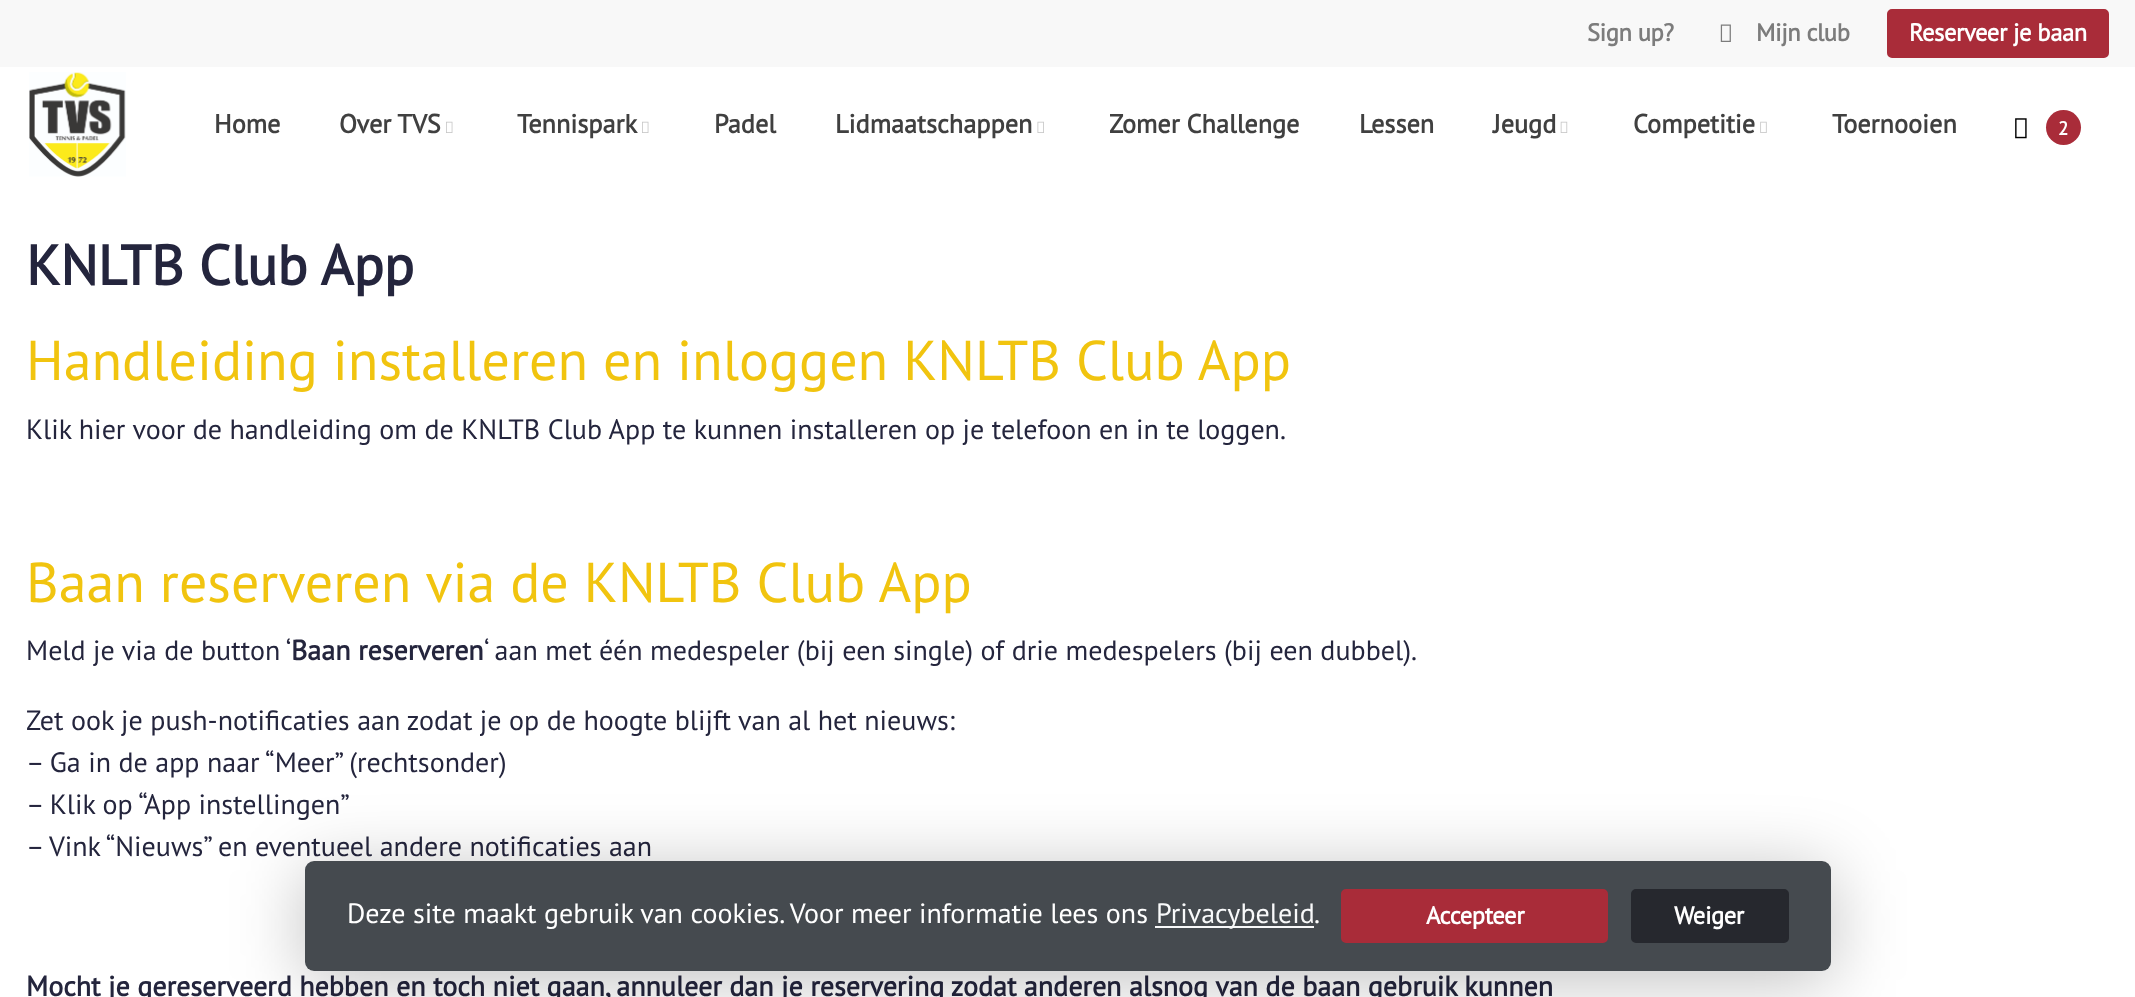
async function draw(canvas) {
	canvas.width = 2135;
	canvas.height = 997;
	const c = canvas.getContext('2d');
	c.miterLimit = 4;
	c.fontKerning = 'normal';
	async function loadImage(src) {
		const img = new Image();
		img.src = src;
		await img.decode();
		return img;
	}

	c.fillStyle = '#fff';
	c.fillRect(0, 0, 2135, 997);
	c.fillStyle = '#f8f8f8';
	c.fillRect(0, 0, 2135, 67);
	c.letterSpacing = '-0.4px';
	c.font = 'bold 24.5px PT Sans';
	c.fillStyle = '#7c7c7c';
	c.fillText('Sign up?', 1587, 41);
	c.drawImage(await loadImage('img1.png'), 1720, 24, 11, 18);
	c.fillText('Mijn club', 1756, 41);
	c.fillStyle = '#a92c39';
	c.beginPath();
	c.roundRect(1888, 10, 220, 47, 4);
	c.fill();
	c.strokeStyle = '#a92c39';
	c.lineWidth = 2;
	c.stroke();
	c.fillStyle = '#fff';
	c.fillText('Reserveer je baan', 1909, 41);
	c.drawImage(await loadImage('img2.png'), 29, 72, 97, 105);
	c.letterSpacing = '0px';
	c.font = 'bold 26.25px PT Sans';
	c.fillStyle = '#404040';
	c.fillText('Home', 214, 133);
	c.fillText('Over TVS', 339, 133);
	c.drawImage(await loadImage('img3.png'), 446, 121, 7, 12);
	c.fillText('Tennispark', 517, 133);
	c.drawImage(await loadImage('img3.png'), 642, 121, 7, 12);
	c.fillText('Padel', 714, 133);
	c.fillText('Lidmaatschappen', 835, 133);
	c.drawImage(await loadImage('img4.png'), 1037, 121, 7, 12);
	for (const [text, x, y] of [
		['Zomer Challenge', 1109, 133],
		['Lessen', 1359, 133],
		['Jeugd', 1493, 133],
	]) {
		c.fillText(text, x, y);
	}
	c.drawImage(await loadImage('img5.png'), 1560, 121, 8, 12);
	c.fillText('Competitie', 1633, 133);
	c.drawImage(await loadImage('img6.png'), 1760, 121, 7, 12);
	c.fillText('Toernooien', 1832, 133);
	c.drawImage(await loadImage('img7.png'), 2015, 118, 12, 21);
	c.fillStyle = '#a92c39';
	c.beginPath();
	c.arc(2063.5, 127.5, 17.5, 0, 2 * Math.PI);
	c.fill();
	c.font = 'bold 19px PT Sans';
	c.fillStyle = '#fff';
	c.fillText('2', 2058, 135);
	c.font = 'bold 56px PT Sans';
	c.fillStyle = '#24253d';
	c.fillText('KNLTB Club App', 26, 285);
	c.font = '56px PT Sans';
	c.fillStyle = '#f1c40f';
	c.fillText('Handleiding installeren en inloggen KNLTB Club App', 26, 380);
	c.font = '28px PT Sans';
	c.fillStyle = '#24253d';
	c.fillText('Klik hier voor de handleiding om de KNLTB Club App te kunnen installeren op je telefoon en in te loggen.', 26, 439);
	c.font = '56px PT Sans';
	c.fillStyle = '#f1c40f';
	c.fillText('Baan reserveren via de KNLTB Club App', 26, 602);
	c.font = '28px PT Sans';
	c.fillStyle = '#24253d';
	c.fillText('Meld je via de button ‘', 26, 660);
	c.font = 'bold 28px PT Sans';
	c.fillText('Baan reserveren', 291, 660);
	c.font = '28px PT Sans';
	for (const [text, x, y] of [
		['‘ aan met één medespeler (bij een single) of drie medespelers (bij een dubbel).', 484, 660],
		['Zet ook je push-notificaties aan zodat je op de hoogte blijft van al het nieuws:', 26, 730],
		['– Ga in de app naar “Meer” (rechtsonder)', 26, 772],
		['– Klik op “App instellingen”', 26, 814],
		['– Vink “Nieuws” en eventueel andere notificaties aan', 26, 856],
	]) {
		c.fillText(text, x, y);
	}
	c.font = 'bold 28px PT Sans';
	c.fillText('Mocht je gereserveerd hebben en toch niet gaan, annuleer dan je reservering zodat anderen alsnog van de baan gebruik kunnen', 26, 996);
	c.save();
	c.beginPath();
	c.moveTo(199, 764);
	c.lineTo(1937, 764);
	c.lineTo(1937, 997);
	c.lineTo(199, 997);
	c.closePath();
	c.moveTo(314, 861);
	c.lineTo(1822, 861);
	c.bezierCurveTo(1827, 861, 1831, 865, 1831, 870);
	c.lineTo(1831, 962);
	c.bezierCurveTo(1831, 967, 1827, 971, 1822, 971);
	c.lineTo(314, 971);
	c.bezierCurveTo(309, 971, 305, 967, 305, 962);
	c.lineTo(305, 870);
	c.bezierCurveTo(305, 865, 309, 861, 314, 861);
	c.closePath();
	c.clip('evenodd');
	c.fillStyle = '#00000040';
	c.filter = 'blur(35px)';
	c.beginPath();
	c.roundRect(305, 870, 1526, 110, 9);
	c.fill();
	c.filter = 'none';
	c.restore();
	c.fillStyle = '#242a30d9';
	c.beginPath();
	c.roundRect(305, 861, 1526, 110, 9);
	c.fill();
	c.font = '28px PT Sans';
	c.fillStyle = '#fff';
	c.fillText('Deze site maakt gebruik van cookies. Voor meer informatie lees ons', 347, 923);
	c.fillStyle = '#f8f9fa';
	c.fillRect(1155, 926, 159, 2);
	c.fillText('Privacybeleid', 1156, 923);
	c.fillStyle = '#fff';
	c.fillText('.', 1314, 923);
	c.fillStyle = '#a92c39';
	c.beginPath();
	c.roundRect(1342, 890, 265, 52, 4);
	c.fill();
	c.stroke();
	c.letterSpacing = '-0.4px';
	c.font = 'bold 24.5px PT Sans';
	c.fillStyle = '#fff';
	c.fillText('Accepteer', 1426, 924);
	c.fillStyle = '#26282e';
	c.beginPath();
	c.roundRect(1632, 890, 156, 52, 4);
	c.fill();
	c.strokeStyle = '#26282e';
	c.stroke();
	c.fillStyle = '#fff';
	c.fillText('Weiger', 1674, 924);
}

draw(document.querySelector('canvas'));
